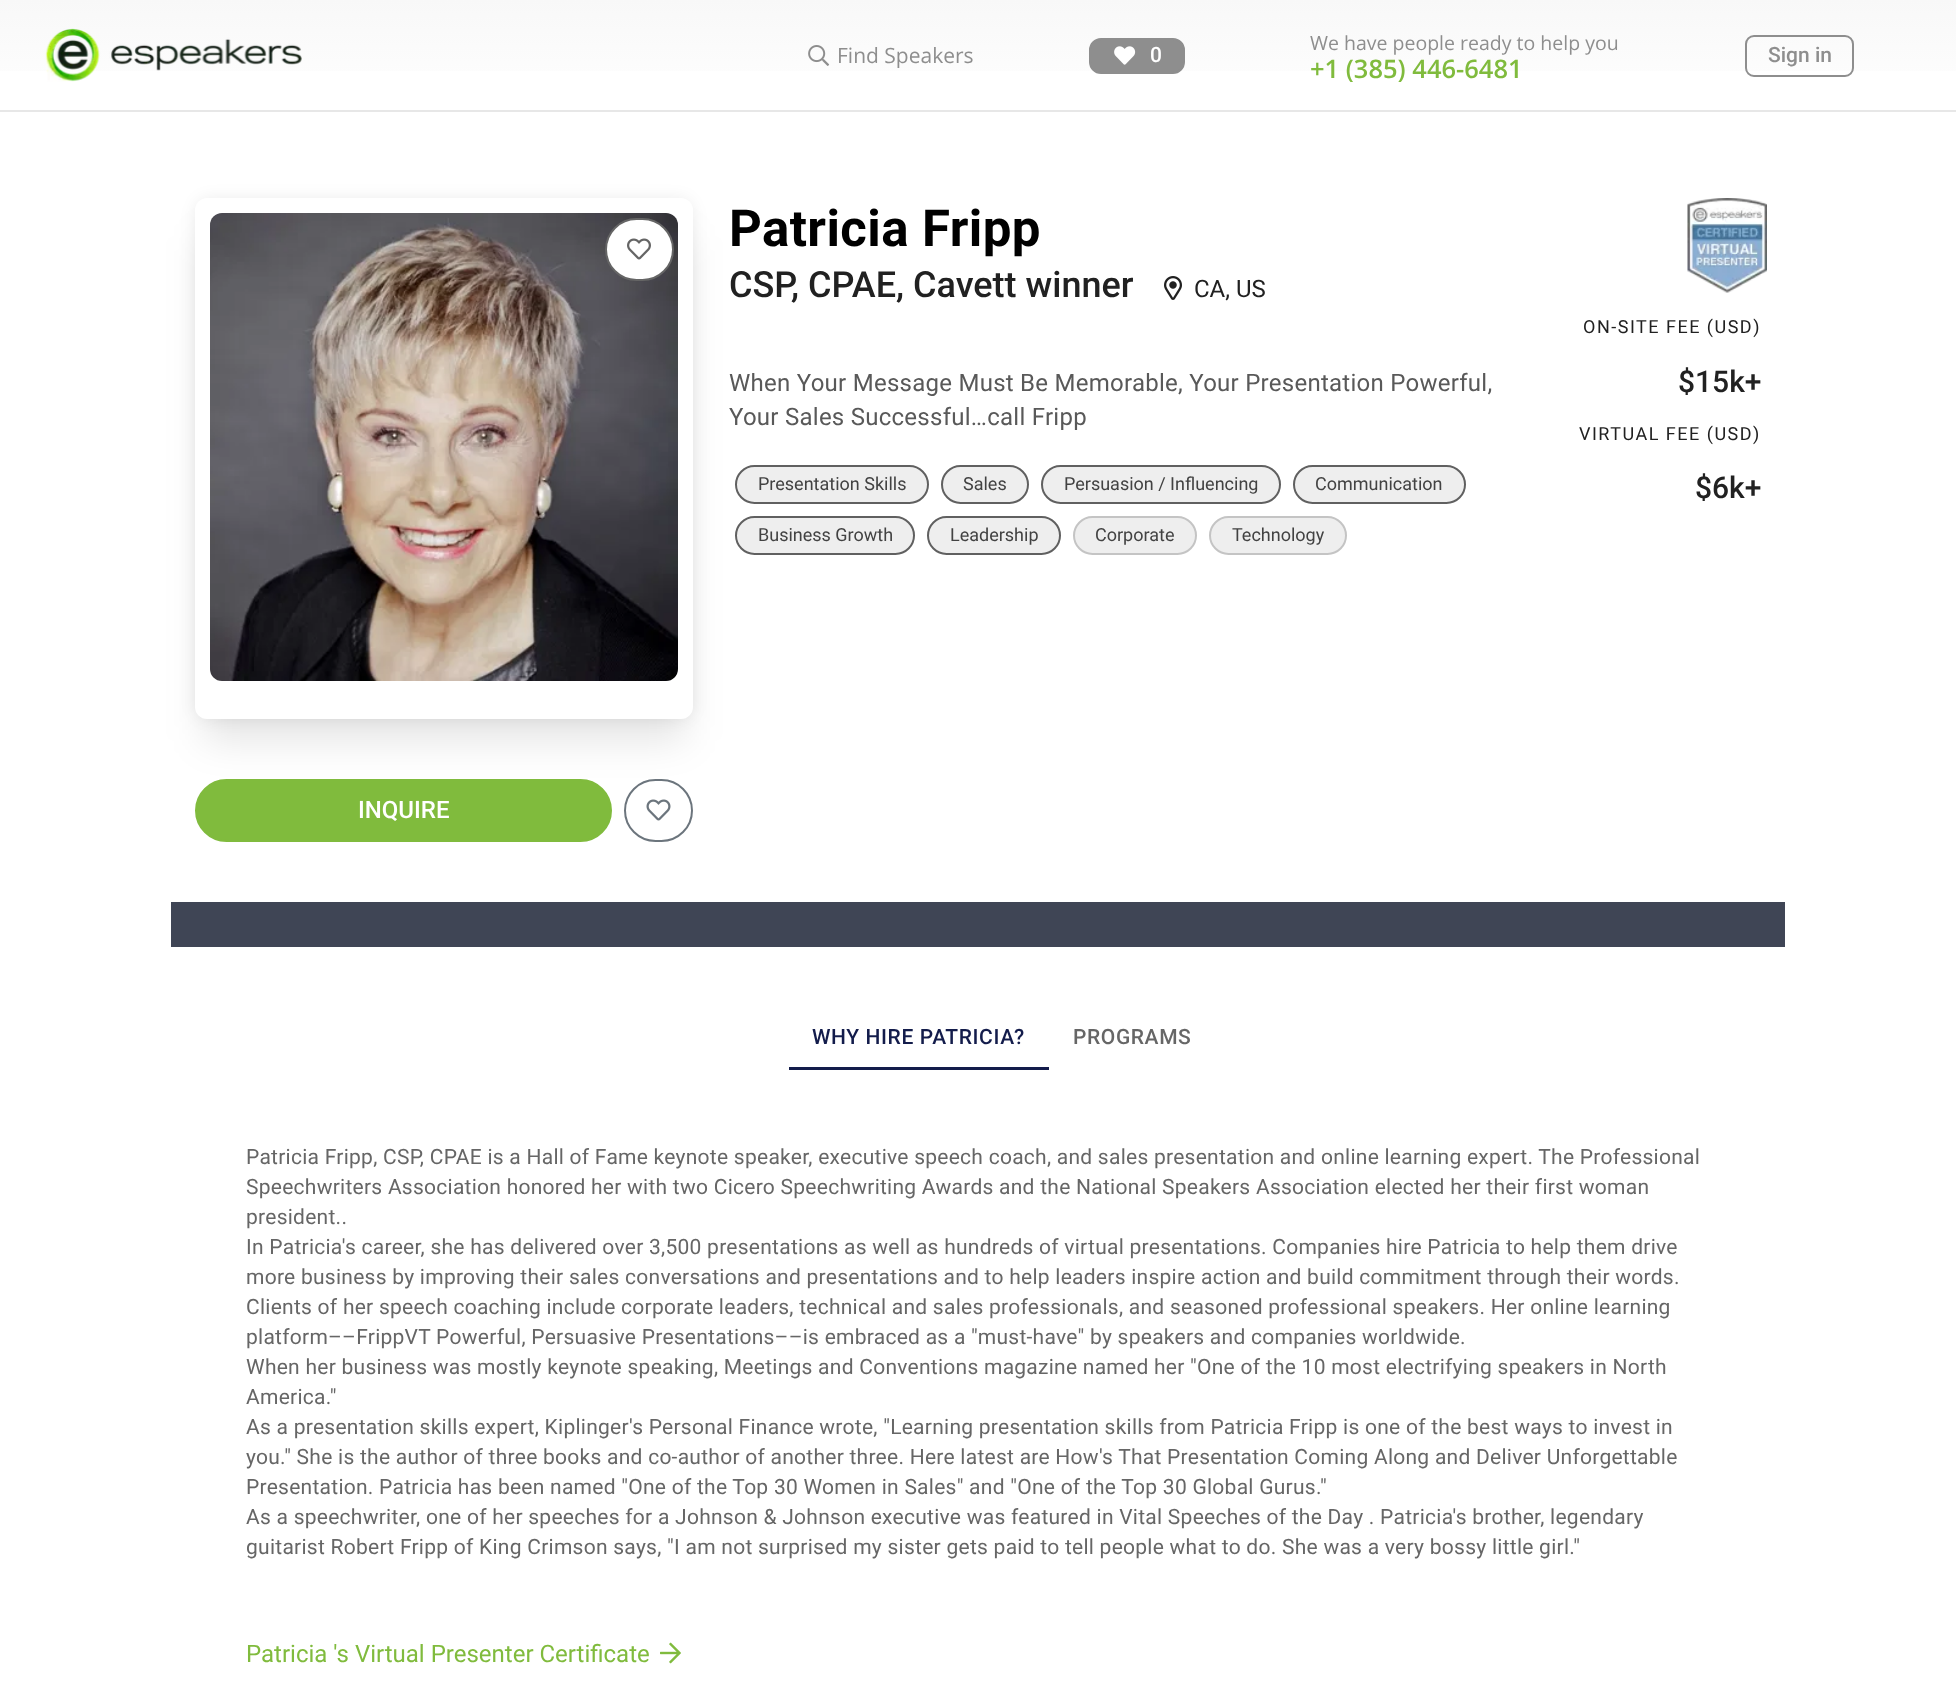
async function draw(canvas) {
	canvas.width = 1956;
	canvas.height = 1703;
	const c = canvas.getContext('2d');
	c.miterLimit = 4;
	c.fontKerning = 'normal';
	async function loadImage(src) {
		const img = new Image();
		img.src = src;
		await img.decode();
		return img;
	}
	let gradient;

	c.fillStyle = '#fff';
	c.fillRect(0, 0, 1956, 1703);
	gradient = c.createLinearGradient(978, 0, 978, 110);
	gradient.addColorStop(0, '#f8f8f8');
	gradient.addColorStop(1, '#fff');
	c.fillStyle = gradient;
	c.fillRect(0, 0, 1956, 71);
	c.fillStyle = '#e7e7e7';
	c.fillRect(0, 110, 1956, 2);
	c.drawImage(await loadImage('img1.png'), 45, 28, 257, 54);
	c.drawImage(await loadImage('img2.png'), 808, 45, 22, 21);
	c.font = '21px Open Sans';
	c.fillStyle = '#8e8e8e';
	c.fillText('Find Speakers', 837, 63);
	c.beginPath();
	c.roundRect(1090, 39, 94, 34, 11);
	c.fill();
	c.strokeStyle = '#8e8e8e';
	c.lineWidth = 2;
	c.stroke();
	c.drawImage(await loadImage('img3.png'), 1114, 46, 22, 19);
	c.font = '500 21px Roboto';
	c.fillStyle = '#fff';
	c.fillText('0', 1150, 62);
	c.font = '19.5px Open Sans';
	c.fillStyle = '#8e8e8e';
	c.fillText('We have people ready to help you', 1310, 50);
	c.font = '600 25.5px Open Sans';
	c.fillStyle = '#80bb3d';
	c.fillText('+1 (385) 446-6481', 1310, 78);
	c.beginPath();
	c.roundRect(1746, 36, 107, 40, 8);
	c.stroke();
	c.font = '500 21px Roboto';
	c.fillStyle = '#8e8e8e';
	c.fillText('Sign in', 1768, 62);
	c.letterSpacing = '0.4px';
	c.font = 'bold 51px Roboto';
	c.fillStyle = '#000';
	c.fillText('Patricia Fripp', 729, 246);
	c.letterSpacing = '0px';
	c.font = '500 36px Roboto';
	c.fillStyle = '#212121';
	c.fillText('CSP, CPAE, Cavett winner', 729, 297);
	c.drawImage(await loadImage('img4.png'), 1164, 276, 18, 24);
	c.font = '24px Roboto';
	c.fillText('CA, US', 1194, 297);
	c.letterSpacing = '0.26px';
	c.fillStyle = '#595959';
	c.fillText('When Your Message Must Be Memorable, Your Presentation Powerful,', 729, 391);
	c.fillText('Your Sales Successful…call Fripp', 729, 425);
	c.fillStyle = '#eee';
	c.beginPath();
	c.roundRect(736, 466, 192, 37, 18.5);
	c.fill();
	c.strokeStyle = '#606060';
	c.stroke();
	c.letterSpacing = '0px';
	c.font = '18px Roboto';
	c.fillStyle = '#424242';
	c.fillText('Presentation Skills', 758, 490);
	c.fillStyle = '#eee';
	c.beginPath();
	c.roundRect(942, 466, 86, 37, 18.5);
	c.fill();
	c.stroke();
	c.fillStyle = '#424242';
	c.fillText('Sales', 963, 490);
	c.fillStyle = '#eee';
	c.beginPath();
	c.roundRect(1042, 466, 238, 37, 18.5);
	c.fill();
	c.stroke();
	c.fillStyle = '#424242';
	c.fillText('Persuasion / Influencing', 1064, 490);
	c.fillStyle = '#eee';
	c.beginPath();
	c.roundRect(1294, 466, 171, 37, 18.5);
	c.fill();
	c.stroke();
	c.fillStyle = '#424242';
	c.fillText('Communication', 1315, 490);
	c.fillStyle = '#eee';
	c.beginPath();
	c.roundRect(736, 517, 178, 37, 18.5);
	c.fill();
	c.stroke();
	c.fillStyle = '#424242';
	c.fillText('Business Growth', 758, 541);
	c.fillStyle = '#eee';
	c.beginPath();
	c.roundRect(928, 517, 132, 37, 18.5);
	c.fill();
	c.stroke();
	c.fillStyle = '#424242';
	c.fillText('Leadership', 950, 541);
	c.fillStyle = '#eee';
	c.beginPath();
	c.roundRect(1074, 517, 122, 37, 18.5);
	c.fill();
	c.strokeStyle = '#c4c4c4';
	c.stroke();
	c.fillStyle = '#424242';
	c.fillText('Corporate', 1095, 541);
	c.fillStyle = '#eee';
	c.beginPath();
	c.roundRect(1210, 517, 136, 37, 18.5);
	c.fill();
	c.stroke();
	c.fillStyle = '#424242';
	c.fillText('Technology', 1232, 541);
	c.drawImage(await loadImage('img5.png'), 1687, 198, 80, 95);
	c.letterSpacing = '1.5px';
	c.fillStyle = '#212121';
	c.fillText('ON-SITE FEE (USD)', 1583, 333);
	c.letterSpacing = '0px';
	c.font = '500 30px Roboto';
	c.fillText('$15k+', 1678, 392);
	c.letterSpacing = '1.5px';
	c.font = '18px Roboto';
	c.fillText('VIRTUAL FEE (USD)', 1579, 440);
	c.letterSpacing = '0px';
	c.font = '500 30px Roboto';
	c.fillText('$6k+', 1695, 498);
	c.fillStyle = '#80bb3d';
	c.beginPath();
	c.roundRect(196, 780, 415, 61, 30.5);
	c.fill();
	c.strokeStyle = '#80bb3d';
	c.stroke();
	c.beginPath();
	c.roundRect(625, 780, 67, 61, 30.5);
	c.strokeStyle = '#6c757d';
	c.stroke();
	c.fillStyle = '#0000001a';
	c.filter = 'blur(19px)';
	c.beginPath();
	c.roundRect(203, 236, 483, 505, 8);
	c.fill();
	c.filter = 'none';
	c.fillStyle = '#00000012';
	c.filter = 'blur(7.5px)';
	c.beginPath();
	c.roundRect(195, 198, 498, 521, 15);
	c.fill();
	c.filter = 'none';
	c.fillStyle = '#fff';
	c.beginPath();
	c.roundRect(195, 198, 498, 521, 12);
	c.fill();
	c.drawImage(await loadImage('img6.png'), 210, 213, 468, 468);
	c.beginPath();
	c.roundRect(606, 219, 67, 61, 30.5);
	c.fill();
	c.strokeStyle = '#656565';
	c.stroke();
	c.drawImage(await loadImage('img7.png'), 627, 238, 24, 22);
	c.font = '500 24px Roboto';
	c.fillText('INQUIRE', 358, 818);
	c.drawImage(await loadImage('img8.png'), 646, 799, 25, 22);
	c.fillStyle = '#3f4555';
	c.fillRect(171, 902, 1614, 45);
	c.letterSpacing = '0.6px';
	c.font = '500 21px Roboto';
	c.fillStyle = '#131c4b';
	c.fillText('WHY HIRE PATRICIA', 812, 1044);
	c.fillText('?', 1014, 1044);
	c.fillRect(789, 1067, 260, 3);
	c.fillStyle = '#666';
	c.fillText('PROGRAMS', 1073, 1044);
	c.letterSpacing = '0.26px';
	c.font = '21px Roboto';
	for (const [text, x, y] of [
		['Patricia Fripp, CSP, CPAE is a Hall of Fame keynote speaker, executive speech coach, and sales presentation and online learning expert. The Professional', 246, 1164],
		['Speechwriters Association honored her with two Cicero Speechwriting Awards and the National Speakers Association elected her their first woman', 246, 1194],
		['president..', 246, 1224],
		['In Patricia\'s career, she has delivered over 3,500 presentations as well as hundreds of virtual presentations. Companies hire Patricia to help them drive', 246, 1254],
		['more business by improving their sales conversations and presentations and to help leaders inspire action and build commitment through their words.', 246, 1284],
		['Clients of her speech coaching include corporate leaders, technical and sales professionals, and seasoned professional speakers. Her online learning', 246, 1314],
		['platform––FrippVT Powerful, Persuasive Presentations––is embraced as a "must-have" by speakers and companies worldwide.', 246, 1344],
		['When her business was mostly keynote speaking, Meetings and Conventions magazine named her "One of the 10 most electrifying speakers in North', 246, 1374],
		['America."', 246, 1404],
		['As a presentation skills expert, Kiplinger\'s Personal Finance wrote, "Learning presentation skills from Patricia Fripp is one of the best ways to invest in', 246, 1434],
		['you." She is the author of three books and co-author of another three. Here latest are How\'s That Presentation Coming Along and Deliver Unforgettable', 246, 1464],
		['Presentation. Patricia has been named "One of the Top 30 Women in Sales" and "One of the Top 30 Global Gurus."', 246, 1494],
		['As a speechwriter, one of her speeches for a Johnson & Johnson executive was featured in Vital Speeches of the Day . Patricia\'s brother, legendary', 246, 1524],
		['guitarist Robert Fripp of King Crimson says, "I am not surprised my sister gets paid to tell people what to do. She was a very bossy little girl."', 246, 1554],
	]) {
		c.fillText(text, x, y);
	}
	c.letterSpacing = '0px';
	c.font = '24px Roboto';
	c.fillStyle = '#80bb3d';
	c.fillText('Patricia \'s Virtual Presenter Certificate', 246, 1662);
	c.drawImage(await loadImage('img9.png'), 660, 1642, 21, 22);
}

draw(document.querySelector('canvas'));
